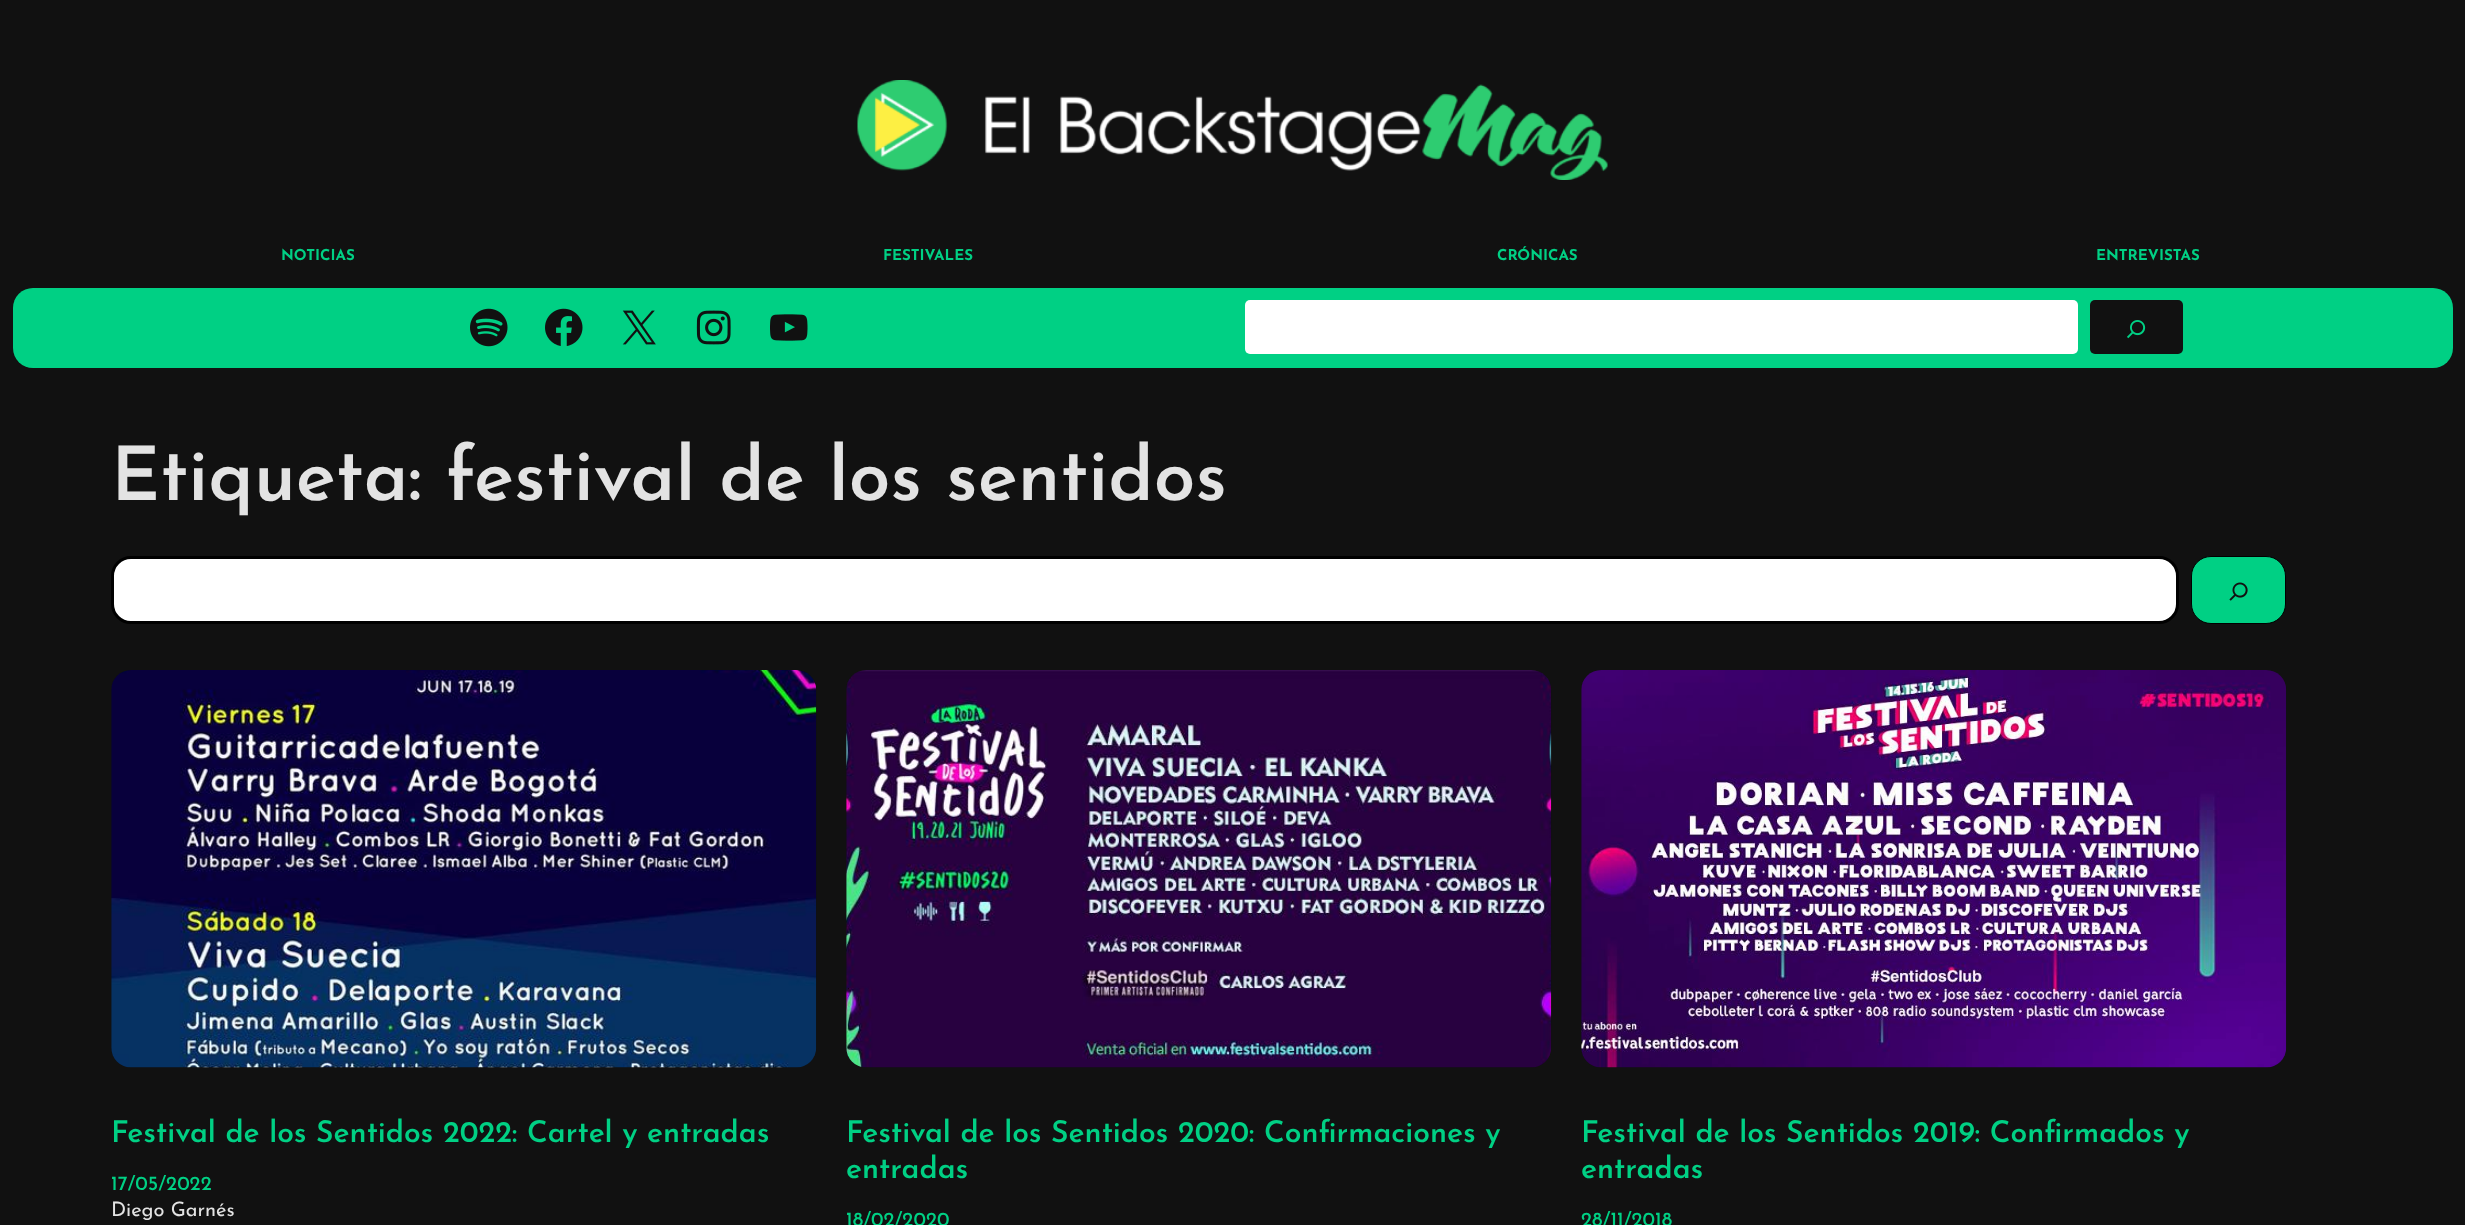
async function draw(canvas) {
	canvas.width = 2465;
	canvas.height = 1225;
	const c = canvas.getContext('2d');
	c.miterLimit = 4;
	c.fontKerning = 'normal';
	async function loadImage(src) {
		const img = new Image();
		img.src = src;
		await img.decode();
		return img;
	}

	c.fillStyle = '#111';
	c.fillRect(0, 0, 2465, 1225);
	c.drawImage(await loadImage('img1.png'), 857, 80, 751, 100);
	c.font = 'bold 15px Josefin Sans';
	c.fillStyle = '#00d084';
	for (const [text, x, y] of [
		['NOTICIAS', 281, 260],
		['FESTIVALES', 883, 260],
		['CRÓNICAS', 1497, 260],
		['ENTREVISTAS', 2096, 260],
	]) {
		c.fillText(text, x, y);
	}
	c.beginPath();
	c.roundRect(13, 288, 2440, 80, 20);
	c.fill();
	c.drawImage(await loadImage('img2.png'), 470, 308, 38, 39);
	c.drawImage(await loadImage('img3.png'), 545, 308, 38, 38);
	c.drawImage(await loadImage('img4.png'), 622, 310, 34, 35);
	c.drawImage(await loadImage('img5.png'), 696, 310, 35, 35);
	c.drawImage(await loadImage('img6.png'), 770, 314, 38, 27);
	c.fillStyle = '#fff';
	c.beginPath();
	c.roundRect(1245, 300, 833, 54, 5);
	c.fill();
	c.fillStyle = '#111';
	c.beginPath();
	c.roundRect(2090, 300, 93, 54, 5);
	c.fill();
	c.drawImage(await loadImage('img7.png'), 2127, 320, 19, 19);
	c.font = '600 75px Josefin Sans';
	c.fillStyle = '#e3e3e3';
	c.fillText('Etiqueta: festival de los sentidos', 111, 500);
	c.fillStyle = '#fff';
	c.beginPath();
	c.roundRect(112.5, 557.5, 2065, 65, 18.5);
	c.fill();
	c.strokeStyle = '#000';
	c.lineWidth = 3;
	c.stroke();
	c.fillStyle = '#00d084';
	c.beginPath();
	c.roundRect(2191.5, 556.5, 94, 67, 19.5);
	c.fill();
	c.lineWidth = 1;
	c.stroke();
	c.drawImage(await loadImage('img8.png'), 2229, 582, 19, 19);
	c.drawImage(await loadImage('img9.png'), 111, 670, 706, 398);
	c.font = '600 30px Josefin Sans';
	c.fillText('Festival de los Sentidos 2022: Cartel y entradas', 111, 1142);
	c.font = '500 20px Josefin Sans';
	c.fillText('17/05/2022', 111, 1190);
	c.font = '20px Josefin Sans';
	c.fillStyle = '#e3e3e3';
	c.fillText('Diego Garnés', 111, 1216);
	c.drawImage(await loadImage('img10.png'), 846, 670, 706, 398);
	c.font = '600 30px Josefin Sans';
	c.fillStyle = '#00d084';
	c.fillText('Festival de los Sentidos 2020: Confirmaciones y', 846, 1142);
	c.fillText('entradas', 846, 1178);
	c.font = '500 20px Josefin Sans';
	c.fillText('18/02/2020', 846, 1226);
	c.drawImage(await loadImage('img11.png'), 1581, 670, 706, 398);
	c.font = '600 30px Josefin Sans';
	c.fillText('Festival de los Sentidos 2019: Confirmados y', 1581, 1142);
	c.fillText('entradas', 1581, 1178);
	c.font = '500 20px Josefin Sans';
	c.fillText('28/11/2018', 1581, 1226);
}

draw(document.querySelector('canvas'));
